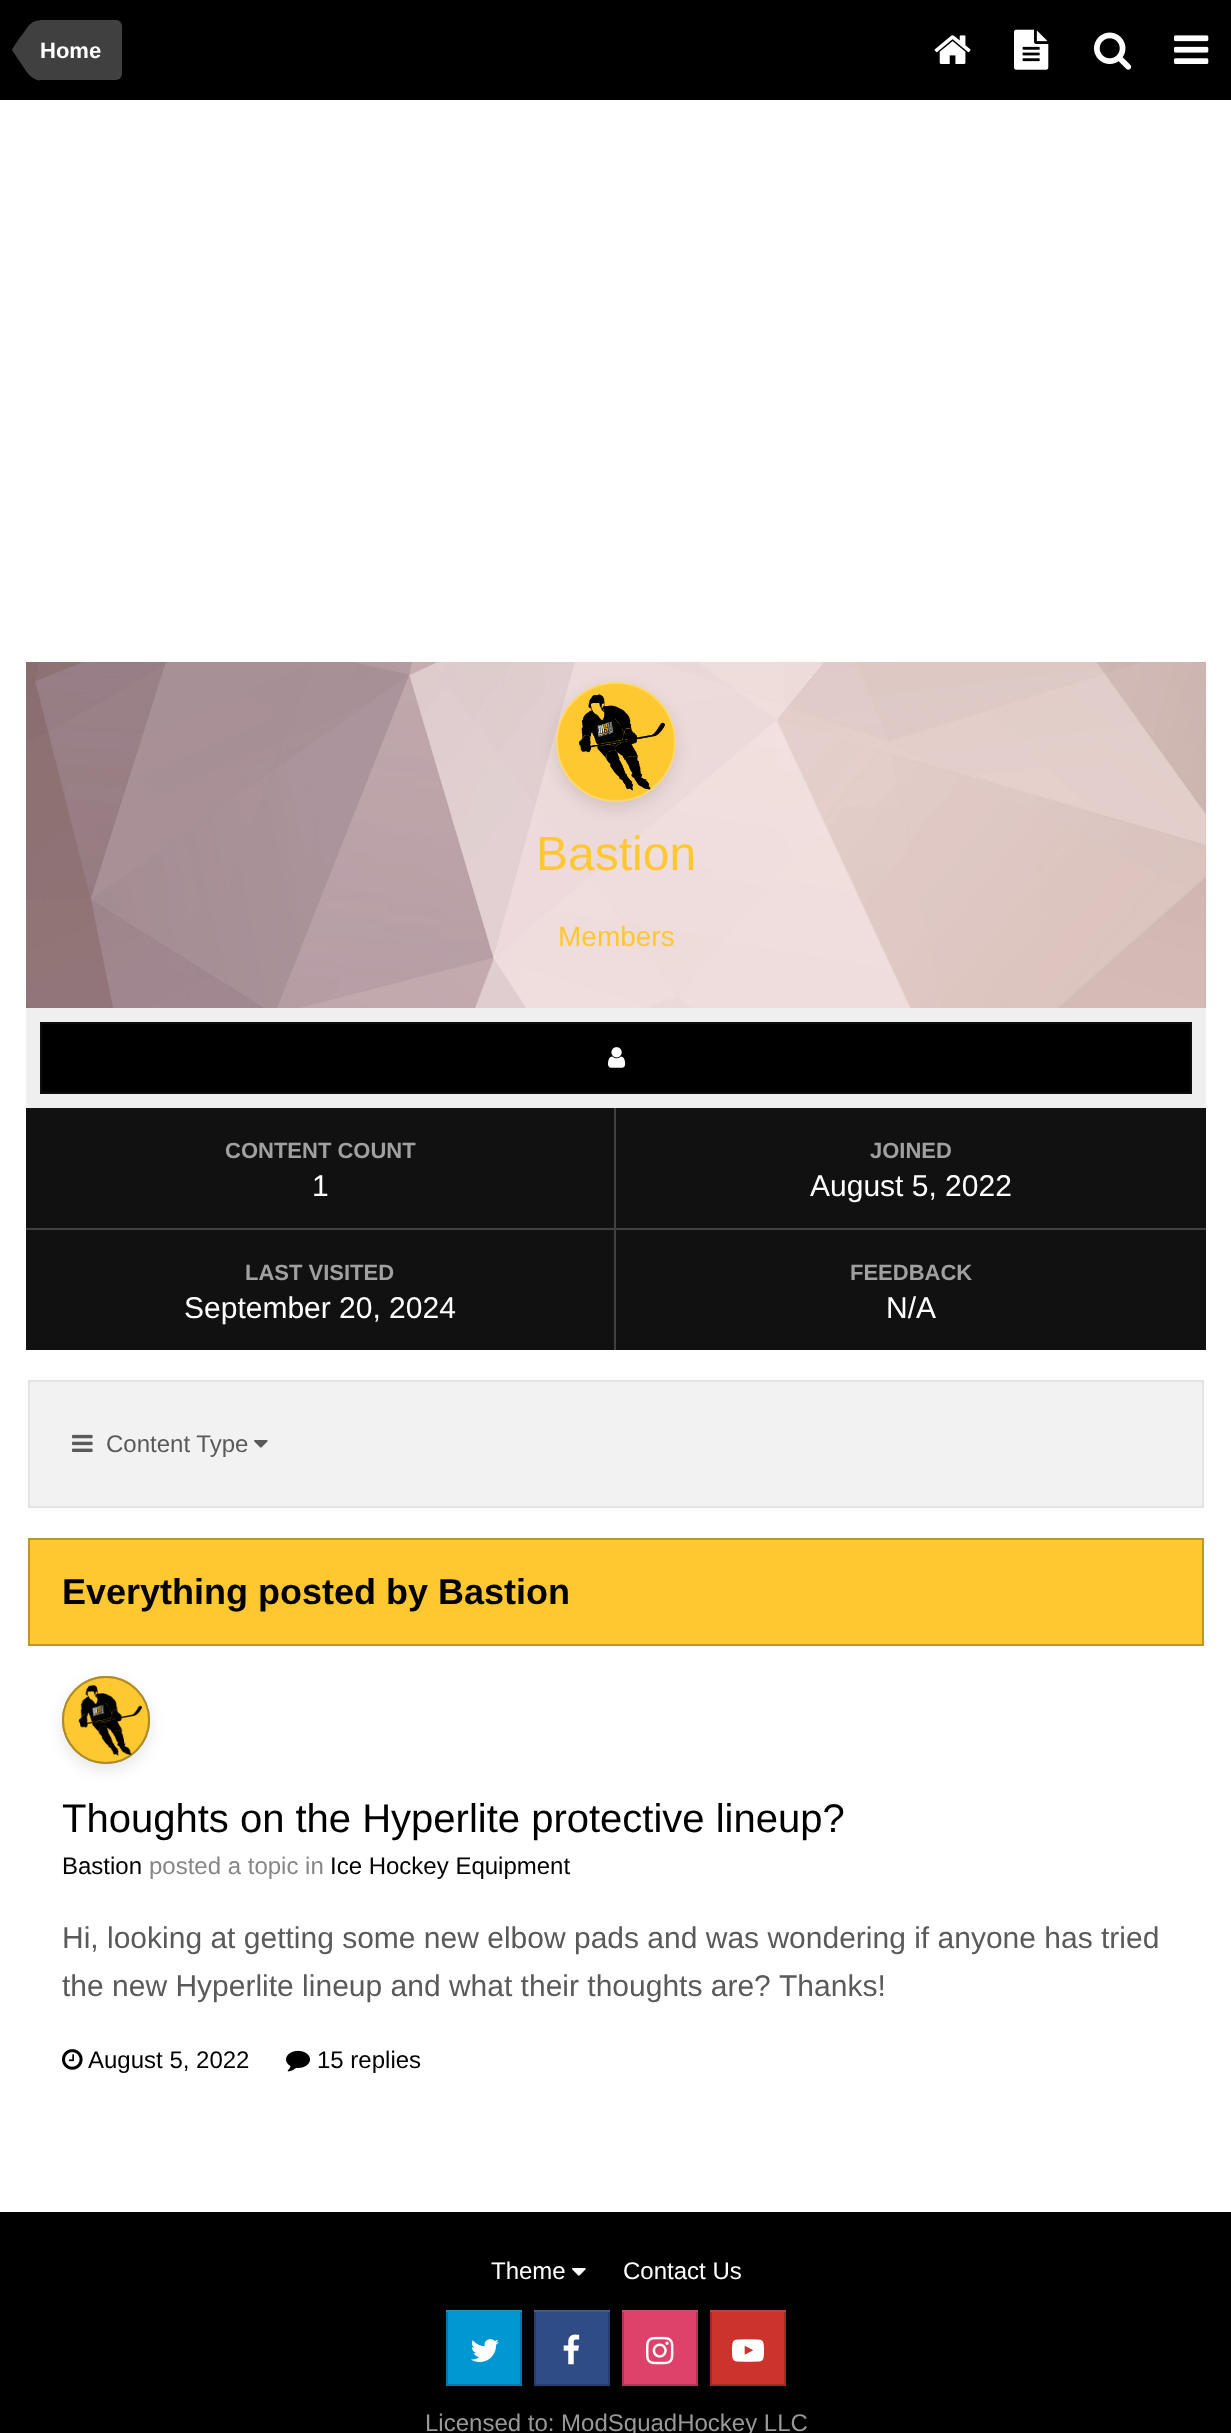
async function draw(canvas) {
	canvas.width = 1231;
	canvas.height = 2433;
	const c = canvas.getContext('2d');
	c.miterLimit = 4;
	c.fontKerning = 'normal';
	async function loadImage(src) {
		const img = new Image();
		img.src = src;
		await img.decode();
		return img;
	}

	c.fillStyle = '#000';
	c.fillRect(0, 0, 1231, 2433);
	c.fillStyle = '#404040';
	c.beginPath();
	c.roundRect(40, 20, 82, 60, [0, 6, 6, 0]);
	c.fill();
	c.beginPath();
	c.moveTo(40, 50);
	c.lineTo(40, 80.5);
	c.bezierCurveTo(35.5, 80, 30.5, 77.5, 26, 71);
	c.lineTo(12, 50);
	c.closePath();
	c.moveTo(40, 50);
	c.lineTo(12, 50);
	c.bezierCurveTo(12, 48.5, 23, 33.5, 24.5, 31.5);
	c.lineTo(29, 25);
	c.lineTo(30.5, 24);
	c.bezierCurveTo(33, 21.5, 36.5, 20, 40, 20.5);
	c.closePath();
	c.fill();
	c.font = 'bold 22px Liberation Sans';
	c.fillStyle = '#fff';
	c.fillText('Home', 40, 58);
	c.drawImage(await loadImage('img1.png'), 934, 35, 37, 29);
	c.drawImage(await loadImage('img2.png'), 1014, 29, 35, 41);
	c.drawImage(await loadImage('img3.png'), 1094, 32, 38, 38);
	c.drawImage(await loadImage('img4.png'), 1174, 35, 35, 29);
	c.fillRect(0, 100, 1231, 2112);
	c.fillStyle = '#f99';
	c.fillRect(26, 662, 1180, 346);
	c.drawImage(await loadImage('img5.png'), 26, 662, 1180, 346);
	c.drawImage(await loadImage('img6.png'), 556, 682, 120, 120);
	c.save();
	c.beginPath();
	c.moveTo(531, 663);
	c.lineTo(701, 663);
	c.lineTo(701, 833);
	c.lineTo(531, 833);
	c.closePath();
	c.moveTo(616, 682);
	c.bezierCurveTo(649, 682, 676, 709, 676, 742);
	c.bezierCurveTo(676, 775, 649, 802, 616, 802);
	c.bezierCurveTo(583, 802, 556, 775, 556, 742);
	c.bezierCurveTo(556, 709, 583, 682, 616, 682);
	c.closePath();
	c.clip('evenodd');
	c.fillStyle = '#0000001a';
	c.filter = 'blur(8px)';
	c.beginPath();
	c.roundRect(556, 688, 120, 120, 60);
	c.fill();
	c.filter = 'none';
	c.restore();
	c.beginPath();
	c.arc(616, 742, 59, 0, 2 * Math.PI);
	c.strokeStyle = '#ffffff4d';
	c.lineWidth = 2;
	c.stroke();
	c.font = '48px Liberation Sans';
	c.fillStyle = '#ffc730';
	c.fillText('Bastion', 536, 870);
	c.font = '28px Liberation Sans';
	c.fillText('Members', 558, 946);
	c.fillStyle = '#efefef';
	c.fillRect(26, 1008, 1180, 100);
	c.fillStyle = '#000';
	c.fillRect(42, 1024, 1148, 68);
	c.drawImage(await loadImage('img7.png'), 608, 1047, 18, 21);
	c.strokeStyle = '#0d0d0d';
	c.strokeRect(41, 1023, 1150, 70);
	c.fillStyle = '#111';
	c.fillRect(26, 1108, 1180, 242);
	c.fillStyle = '#414141';
	c.fillRect(614, 1108, 2, 120);
	c.font = 'bold 22px Liberation Sans';
	c.fillStyle = '#a0a0a0';
	c.fillText('CONTENT COUNT', 225, 1158);
	c.font = '30px Liberation Sans';
	c.fillStyle = '#fff';
	c.fillText('1', 312, 1196);
	c.font = 'bold 22px Liberation Sans';
	c.fillStyle = '#a0a0a0';
	c.fillText('JOINED', 870, 1158);
	c.font = '30px Liberation Sans';
	c.fillStyle = '#fff';
	c.fillText('August 5, 2022', 810, 1196);
	c.fillStyle = '#414141';
	c.beginPath();
	c.moveTo(26, 1228);
	c.lineTo(616, 1228);
	c.lineTo(614, 1230);
	c.lineTo(26, 1230);
	c.closePath();
	c.fill();
	c.fillStyle = '#ffffff33';
	c.beginPath();
	c.moveTo(616, 1228);
	c.lineTo(616, 1350);
	c.lineTo(614, 1350);
	c.lineTo(614, 1230);
	c.closePath();
	c.fill();
	c.font = 'bold 22px Liberation Sans';
	c.fillStyle = '#a0a0a0';
	c.fillText('LAST VISITED', 245, 1280);
	c.font = '30px Liberation Sans';
	c.fillStyle = '#fff';
	c.fillText('September 20, 2024', 184, 1318);
	c.fillStyle = '#414141';
	c.fillRect(616, 1228, 590, 2);
	c.font = 'bold 22px Liberation Sans';
	c.fillStyle = '#a0a0a0';
	c.fillText('FEEDBACK', 850, 1280);
	c.font = '30px Liberation Sans';
	c.fillStyle = '#fff';
	c.fillText('N/A', 886, 1318);
	c.fillStyle = '#f2f2f2';
	c.beginPath();
	c.rect(29, 1381, 1174, 126);
	c.fill();
	c.strokeStyle = '#e3e3e3';
	c.stroke();
	c.drawImage(await loadImage('img8.png'), 72, 1434, 21, 18);
	c.font = '24px Liberation Sans';
	c.fillStyle = '#5a5a5a';
	c.fillText('Content Type', 106, 1452);
	c.drawImage(await loadImage('img9.png'), 254, 1440, 14, 8);
	c.fillStyle = '#ffc730';
	c.beginPath();
	c.rect(29, 1539, 1174, 106);
	c.fill();
	c.strokeStyle = '#bf9524';
	c.stroke();
	c.font = 'bold 36px Liberation Sans';
	c.fillStyle = '#000';
	c.fillText('Everything posted by Bastion', 62, 1604);
	c.fillStyle = '#55728b';
	c.beginPath();
	c.arc(106, 1720, 44, 0, 2 * Math.PI);
	c.fill();
	c.fillStyle = '#ffffff1f';
	c.beginPath();
	c.arc(106, 1720, 44, 0, 2 * Math.PI);
	c.fill();
	c.drawImage(await loadImage('img10.png'), 62, 1676, 88, 88);
	c.save();
	c.beginPath();
	c.moveTo(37, 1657);
	c.lineTo(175, 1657);
	c.lineTo(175, 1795);
	c.lineTo(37, 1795);
	c.closePath();
	c.moveTo(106, 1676);
	c.bezierCurveTo(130.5, 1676, 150, 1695.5, 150, 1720);
	c.bezierCurveTo(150, 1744.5, 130.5, 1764, 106, 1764);
	c.bezierCurveTo(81.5, 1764, 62, 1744.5, 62, 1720);
	c.bezierCurveTo(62, 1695.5, 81.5, 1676, 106, 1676);
	c.closePath();
	c.clip('evenodd');
	c.fillStyle = '#0000001a';
	c.filter = 'blur(8px)';
	c.beginPath();
	c.roundRect(62, 1682, 88, 88, 44);
	c.fill();
	c.filter = 'none';
	c.restore();
	c.beginPath();
	c.arc(106, 1720, 43, 0, 2 * Math.PI);
	c.strokeStyle = '#0000004d';
	c.stroke();
	c.font = '40px Liberation Sans';
	c.fillStyle = '#000';
	c.fillText('Thoughts on the Hyperlite protective lineup?', 62, 1832);
	c.font = '24px Liberation Sans';
	c.fillText('Bastion', 62, 1874);
	c.fillStyle = '#878787';
	c.fillText('posted a topic in', 149, 1874);
	c.fillStyle = '#000';
	c.fillText('Ice Hockey Equipment', 330, 1874);
	c.font = '30px Liberation Sans';
	c.fillStyle = '#5a5a5a';
	for (const [text, x, y] of [
		['Hi, looking at getting some new elbow pads and was wondering if anyone has tried', 62, 1948],
		['the new Hyperlite lineup and what their thoughts are?', 62, 1996],
		['Thanks!', 779, 1996],
	]) {
		c.fillText(text, x, y);
	}
	c.drawImage(await loadImage('img11.png'), 62, 2049, 21, 21);
	c.font = '24px Liberation Sans';
	c.fillStyle = '#000';
	c.fillText('August 5, 2022', 88, 2068);
	c.drawImage(await loadImage('img12.png'), 286, 2050, 24, 22);
	c.fillText('15 replies', 317, 2068);
	c.fillStyle = '#fff';
	c.fillText('Theme', 491, 2279);
	c.drawImage(await loadImage('img13.png'), 572, 2268, 14, 8);
	c.fillText('Contact Us', 623, 2279);
	c.fillStyle = '#0097d3';
	c.beginPath();
	c.rect(447, 2311, 74, 74);
	c.fill();
	c.strokeStyle = '#0079a9';
	c.stroke();
	c.fillStyle = '#268db6';
	c.fillRect(446, 2310, 76, 2);
	c.drawImage(await loadImage('img14.png'), 471, 2339, 28, 23);
	c.fillStyle = '#304c87';
	c.beginPath();
	c.rect(535, 2311, 74, 74);
	c.fill();
	c.strokeStyle = '#263d6c';
	c.stroke();
	c.fillStyle = '#475a82';
	c.fillRect(534, 2310, 76, 2);
	c.drawImage(await loadImage('img15.png'), 563, 2334, 17, 31);
	c.fillStyle = '#de416a';
	c.beginPath();
	c.rect(623, 2311, 74, 74);
	c.fill();
	c.strokeStyle = '#b23455';
	c.stroke();
	c.fillStyle = '#be526f';
	c.fillRect(622, 2310, 76, 2);
	c.drawImage(await loadImage('img16.png'), 646, 2336, 28, 29);
	c.fillStyle = '#cc332d';
	c.beginPath();
	c.rect(711, 2311, 74, 74);
	c.fill();
	c.strokeStyle = '#a32924';
	c.stroke();
	c.fillStyle = '#b14945';
	c.fillRect(710, 2310, 76, 2);
	c.drawImage(await loadImage('img17.png'), 732, 2339, 32, 23);
	c.fillStyle = '#999';
	c.fillText('Licensed to: ModSquadHockey LLC', 425, 2431);
}

draw(document.querySelector('canvas'));
